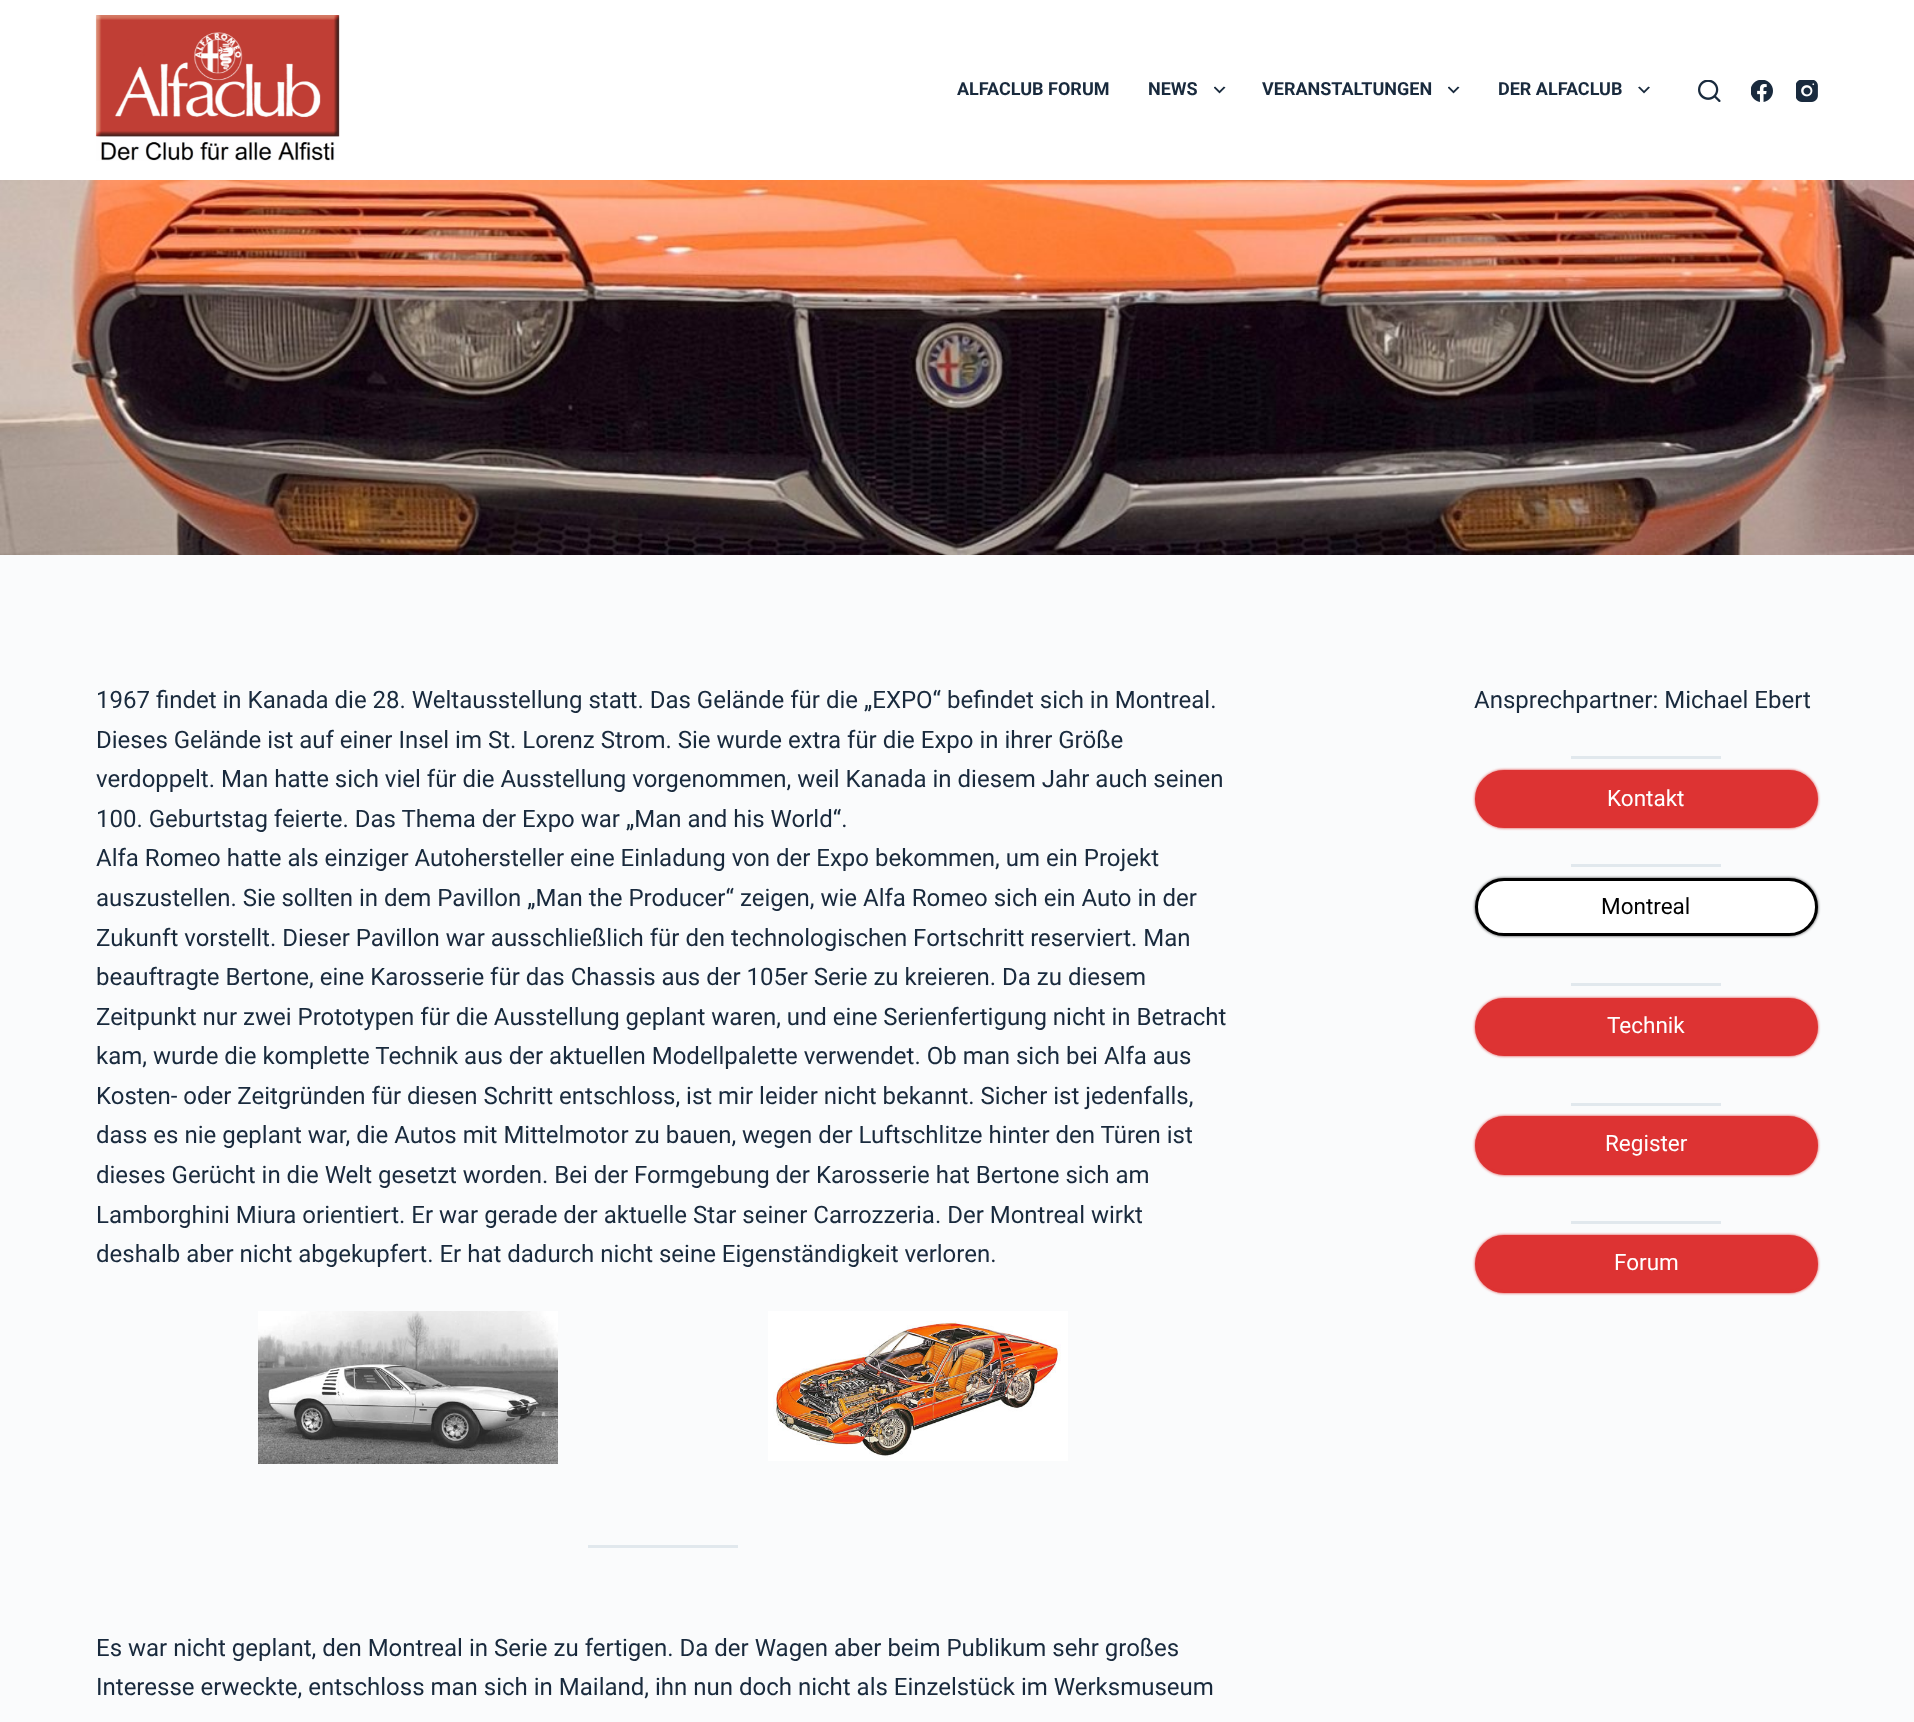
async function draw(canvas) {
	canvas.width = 1914;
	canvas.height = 1722;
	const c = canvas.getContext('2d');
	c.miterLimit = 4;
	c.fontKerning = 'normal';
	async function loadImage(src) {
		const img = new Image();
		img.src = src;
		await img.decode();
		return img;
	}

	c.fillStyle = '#fafbfc';
	c.fillRect(0, 0, 1914, 1722);
	c.fillStyle = '#fff';
	c.fillRect(0, 0, 1914, 180);
	c.drawImage(await loadImage('img1.png'), 95, 15, 245, 146);
	c.font = 'bold 18px Roboto';
	c.fillStyle = '#192a3d';
	c.fillText('ALFACLUB FORUM', 957, 95);
	c.fillText('NEWS', 1148, 95);
	c.drawImage(await loadImage('img2.png'), 1214, 86, 12, 8);
	c.fillText('VERANSTALTUNGEN', 1262, 95);
	c.drawImage(await loadImage('img2.png'), 1448, 86, 12, 8);
	c.fillText('DER ALFACLUB', 1498, 95);
	c.drawImage(await loadImage('img3.png'), 1638, 86, 12, 8);
	c.drawImage(await loadImage('img4.png'), 1698, 80, 23, 22);
	c.drawImage(await loadImage('img5.png'), 1751, 80, 22, 22);
	c.drawImage(await loadImage('img6.png'), 1796, 80, 22, 22);
	c.drawImage(await loadImage('img7.png'), 0, 180, 1914, 375);
	c.font = '24px Roboto';
	for (const [text, x, y] of [
		['1967 findet in Kanada die 28. Weltausstellung statt. Das Gelände für die „EXPO“ befindet sich in Montreal.', 96, 708],
		['Dieses Gelände ist auf einer Insel im St. Lorenz Strom. Sie wurde extra für die Expo in ihrer Größe', 96, 748],
		['verdoppelt. Man hatte sich viel für die Ausstellung vorgenommen, weil Kanada in diesem Jahr auch seinen', 96, 787],
		['100. Geburtstag feierte. Das Thema der Expo war „Man and his World“.', 96, 827],
		['Alfa Romeo hatte als einziger Autohersteller eine Einladung von der Expo bekommen, um ein Projekt', 96, 866],
		['auszustellen. Sie sollten in dem Pavillon „Man the Producer“ zeigen, wie Alfa Romeo sich ein Auto in der', 96, 906],
		['Zukunft vorstellt. Dieser Pavillon war ausschließlich für den technologischen Fortschritt reserviert. Man', 96, 946],
		['beauftragte Bertone, eine Karosserie für das Chassis aus der 105er Serie zu kreieren. Da zu diesem', 96, 985],
		['Zeitpunkt nur zwei Prototypen für die Ausstellung geplant waren, und eine Serienfertigung nicht in Betracht', 96, 1025],
		['kam, wurde die komplette Technik aus der aktuellen Modellpalette verwendet. Ob man sich bei Alfa aus', 96, 1064],
		['Kosten- oder Zeitgründen für diesen Schritt entschloss, ist mir leider nicht bekannt. Sicher ist jedenfalls,', 96, 1104],
		['dass es nie geplant war, die Autos mit Mittelmotor zu bauen, wegen der Luftschlitze hinter den Türen ist', 96, 1143],
		['dieses Gerücht in die Welt gesetzt worden. Bei der Formgebung der Karosserie hat Bertone sich am', 96, 1183],
		['Lamborghini Miura orientiert. Er war gerade der aktuelle Star seiner Carrozzeria. Der Montreal wirkt', 96, 1223],
		['deshalb aber nicht abgekupfert. Er hat dadurch nicht seine Eigenständigkeit verloren.', 96, 1262],
	]) {
		c.fillText(text, x, y);
	}
	c.drawImage(await loadImage('img8.png'), 258, 1311, 300, 153);
	c.drawImage(await loadImage('img9.png'), 768, 1311, 300, 150);
	c.fillStyle = '#e1e8ed';
	c.fillRect(588, 1545, 150, 3);
	c.fillStyle = '#192a3d';
	for (const [text, x, y] of [
		['Es war nicht geplant, den Montreal in Serie zu fertigen. Da der Wagen aber beim Publikum sehr großes', 96, 1656],
		['Interesse erweckte, entschloss man sich in Mailand, ihn nun doch nicht als Einzelstück im Werksmuseum', 96, 1695],
		['Ansprechpartner: Michael Ebert', 1474, 708],
	]) {
		c.fillText(text, x, y);
	}
	c.fillStyle = '#e1e8ed';
	c.fillRect(1571, 756, 150, 3);
	c.fillStyle = '#d33';
	c.filter = 'blur(1.5px)';
	c.beginPath();
	c.roundRect(1475, 770, 343, 58, 29);
	c.fill();
	c.filter = 'none';
	c.beginPath();
	c.roundRect(1476.5, 771.5, 340, 55, 27.5);
	c.fill();
	c.strokeStyle = '#d33';
	c.lineWidth = 3;
	c.stroke();
	c.font = '22.5px Roboto';
	c.fillStyle = '#fff';
	c.fillText('Kontakt', 1607, 806);
	c.fillStyle = '#e1e8ed';
	c.fillRect(1571, 864, 150, 3);
	c.fillStyle = '#333';
	c.filter = 'blur(1.5px)';
	c.beginPath();
	c.roundRect(1475, 878, 343, 58, 29);
	c.fill();
	c.filter = 'none';
	c.fillStyle = '#fff';
	c.beginPath();
	c.roundRect(1476.5, 879.5, 340, 55, 27.5);
	c.fill();
	c.strokeStyle = '#000';
	c.stroke();
	c.fillStyle = '#000';
	c.fillText('Montreal', 1601, 914);
	c.fillStyle = '#e1e8ed';
	c.fillRect(1571, 983, 150, 3);
	c.fillStyle = '#d33';
	c.filter = 'blur(1.5px)';
	c.beginPath();
	c.roundRect(1475, 998, 343, 58, 29);
	c.fill();
	c.filter = 'none';
	c.beginPath();
	c.roundRect(1476.5, 999.5, 340, 55, 27.5);
	c.fill();
	c.strokeStyle = '#d33';
	c.stroke();
	c.fillStyle = '#fff';
	c.fillText('Technik', 1607, 1033);
	c.fillStyle = '#e1e8ed';
	c.fillRect(1571, 1103, 150, 3);
	c.fillStyle = '#d33';
	c.filter = 'blur(1.5px)';
	c.beginPath();
	c.roundRect(1475, 1116, 343, 59, 29.5);
	c.fill();
	c.filter = 'none';
	c.beginPath();
	c.roundRect(1476.5, 1117.5, 340, 56, 28);
	c.fill();
	c.stroke();
	c.fillStyle = '#fff';
	c.fillText('Register', 1605, 1151);
	c.fillStyle = '#e1e8ed';
	c.fillRect(1571, 1221, 150, 3);
	c.fillStyle = '#d33';
	c.filter = 'blur(1.5px)';
	c.beginPath();
	c.roundRect(1475, 1235, 343, 58, 29);
	c.fill();
	c.filter = 'none';
	c.beginPath();
	c.roundRect(1476.5, 1236.5, 340, 55, 27.5);
	c.fill();
	c.stroke();
	c.fillStyle = '#fff';
	c.fillText('Forum', 1614, 1270);
}

draw(document.querySelector('canvas'));
